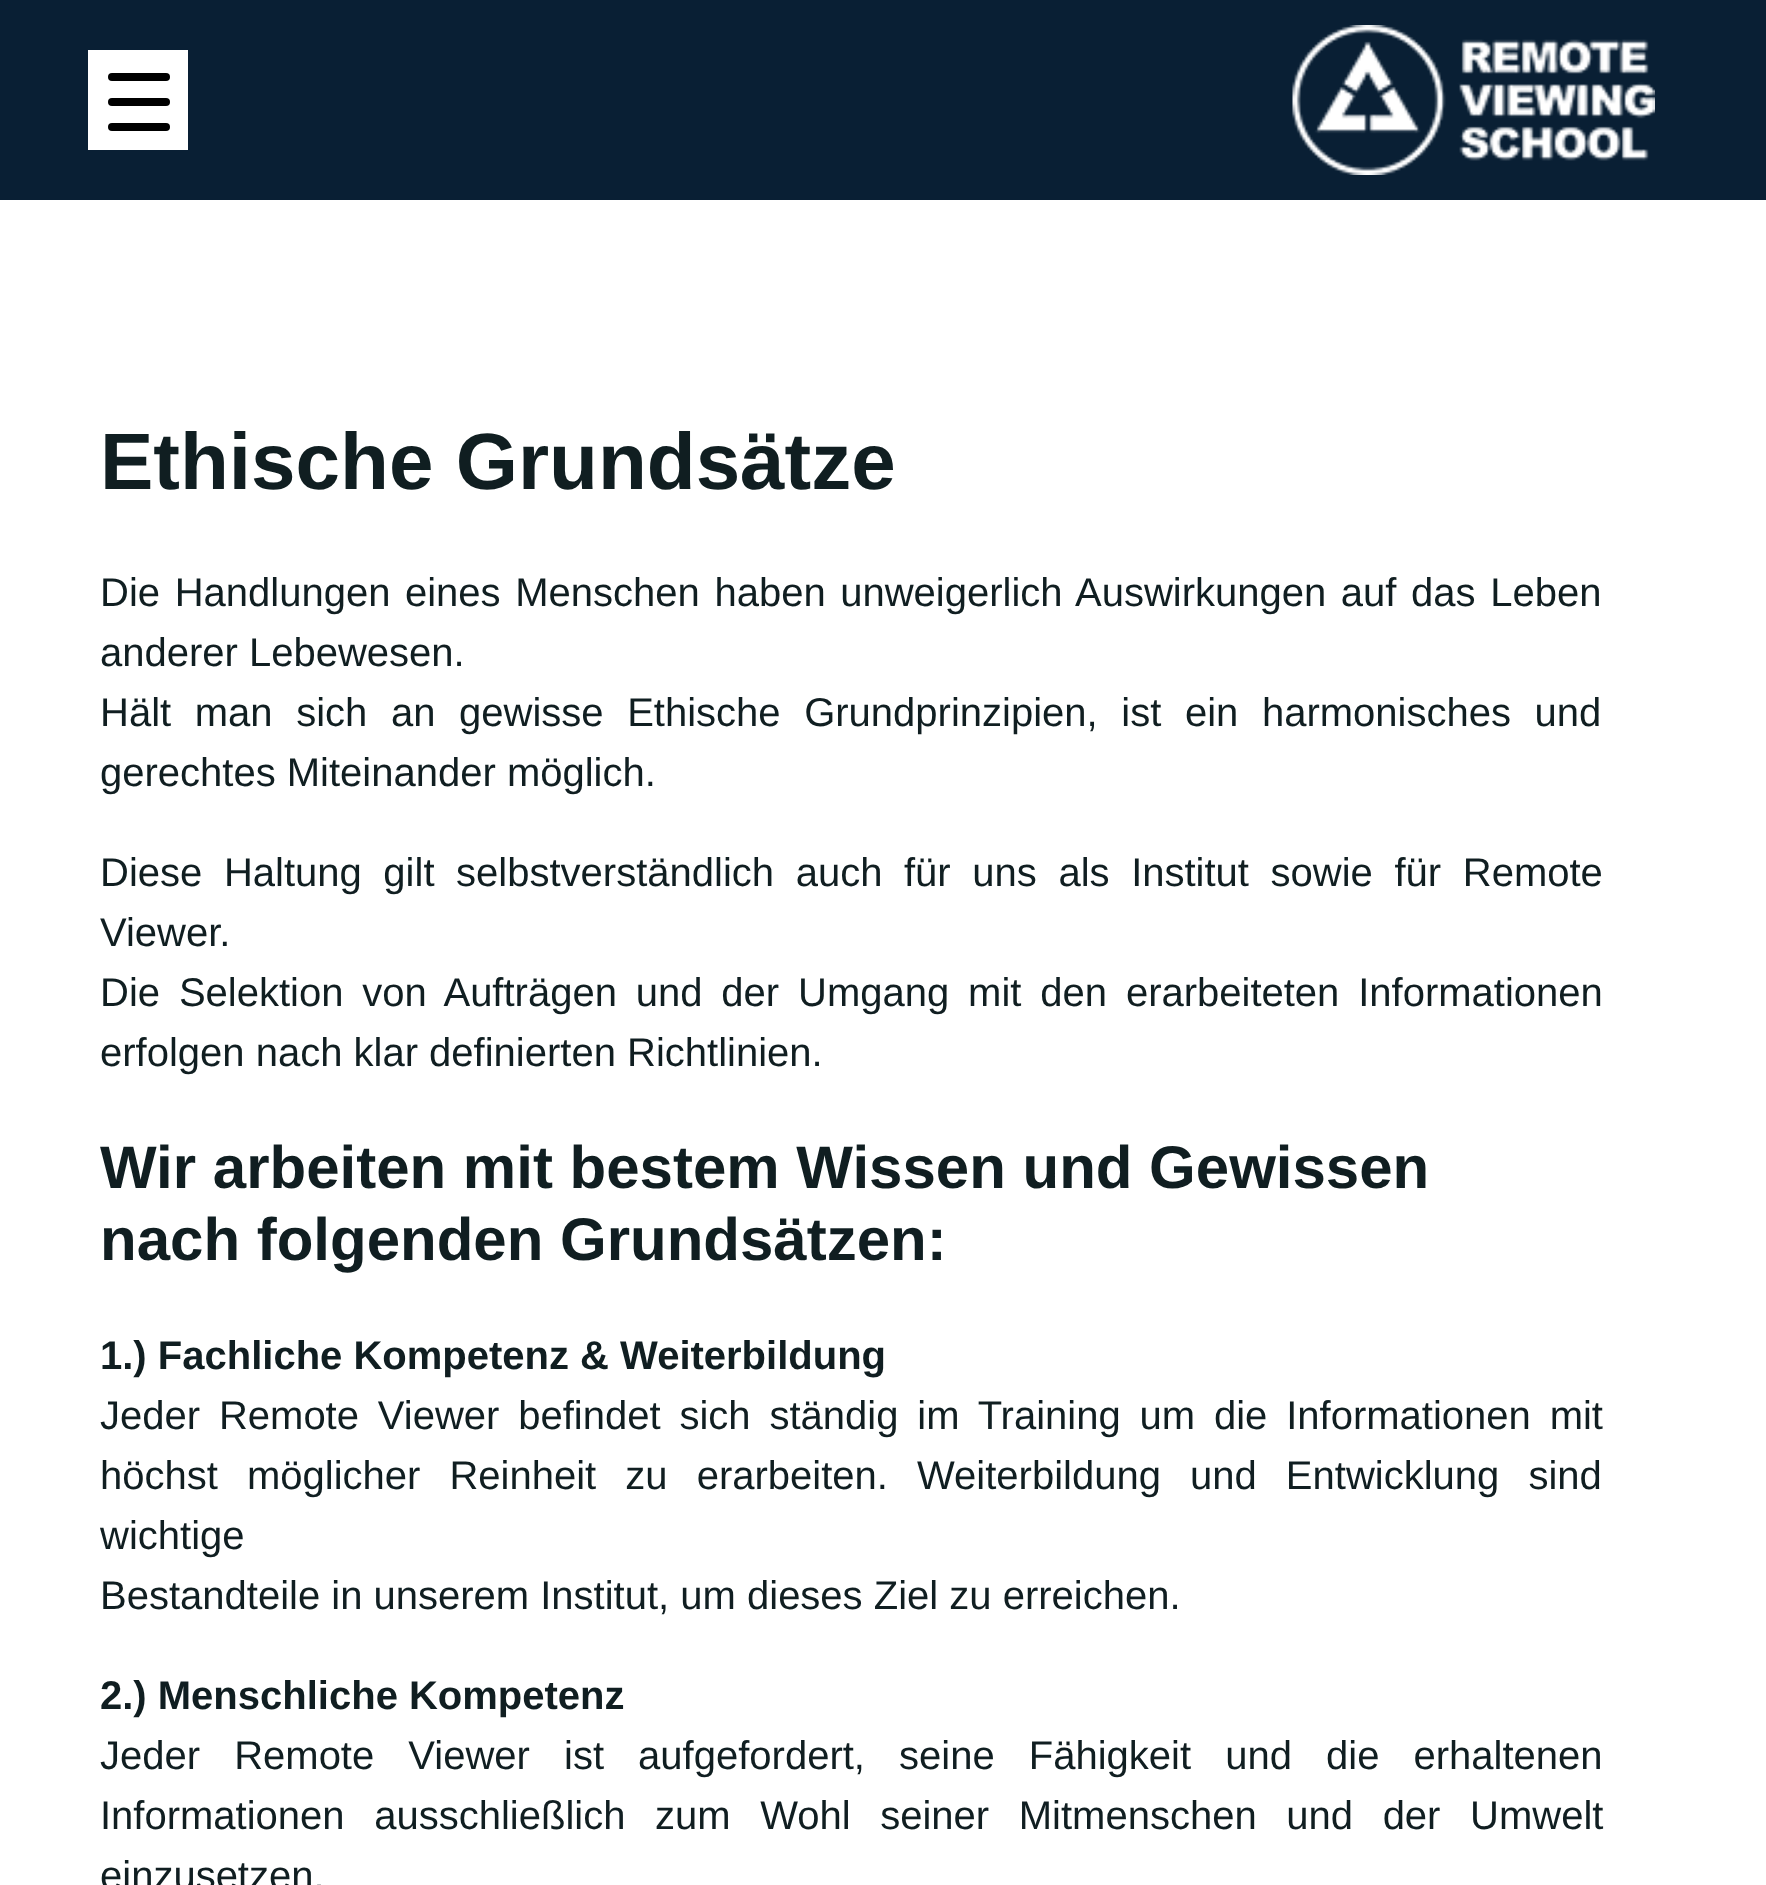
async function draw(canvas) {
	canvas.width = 1766;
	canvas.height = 1885;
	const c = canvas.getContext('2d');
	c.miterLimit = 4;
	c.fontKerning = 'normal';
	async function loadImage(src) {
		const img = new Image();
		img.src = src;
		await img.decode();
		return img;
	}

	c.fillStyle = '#fff';
	c.fillRect(0, 0, 1766, 1885);
	c.fillStyle = '#091f34';
	c.fillRect(0, 0, 1766, 200);
	c.drawImage(await loadImage('img1.png'), 1292, 25, 363, 150);
	c.fillStyle = '#fff';
	c.fillRect(88, 50, 100, 100);
	c.fillStyle = '#000';
	c.beginPath();
	c.roundRect(108, 98, 62, 8, 4);
	c.fill();
	c.beginPath();
	c.roundRect(108, 73, 62, 8, 4);
	c.fill();
	c.beginPath();
	c.roundRect(108, 123, 62, 8, 4);
	c.fill();
	c.font = 'bold 80px Liberation Sans';
	c.fillStyle = '#101e21';
	c.fillText('Ethische Grundsätze', 100, 489);
	c.wordSpacing = '3.5px';
	c.font = '40px Liberation Sans';
	c.fillText('Die Handlungen eines Menschen haben unweigerlich Auswirkungen auf das Leben', 100, 606);
	c.wordSpacing = '0px';
	c.fillText('anderer Lebewesen.', 100, 666);
	c.wordSpacing = '12.5px';
	c.fillText('Hält man sich an gewisse Ethische Grundprinzipien, ist ein harmonisches und', 100, 726);
	c.wordSpacing = '0px';
	c.fillText('gerechtes Miteinander möglich.', 100, 786);
	c.wordSpacing = '10.5px';
	c.fillText('Diese Haltung gilt selbstverständlich auch für uns als Institut sowie für Remote', 100, 886);
	c.wordSpacing = '0px';
	c.fillText('Viewer.', 100, 946);
	c.wordSpacing = '7.75px';
	c.fillText('Die Selektion von Aufträgen und der Umgang mit den erarbeiteten Informationen', 100, 1006);
	c.wordSpacing = '0px';
	c.fillText('erfolgen nach klar definierten Richtlinien.', 100, 1066);
	c.font = 'bold 60px Liberation Sans';
	c.fillText('Wir arbeiten mit bestem Wissen und Gewissen', 100, 1188);
	c.fillText('nach folgenden Grundsätzen:', 100, 1260);
	c.font = 'bold 40px Liberation Sans';
	c.fillText('1.) Fachliche Kompetenz & Weiterbildung', 100, 1369);
	c.wordSpacing = '7.75px';
	c.font = '40px Liberation Sans';
	c.fillText('Jeder Remote Viewer befindet sich ständig im Training um die Informationen mit', 100, 1429);
	c.wordSpacing = '18px';
	c.fillText('höchst möglicher Reinheit zu erarbeiten. Weiterbildung und Entwicklung sind', 100, 1489);
	c.wordSpacing = '0px';
	c.fillText('wichtige', 100, 1549);
	c.fillText('Bestandteile in unserem Institut, um dieses Ziel zu erreichen.', 100, 1609);
	c.font = 'bold 40px Liberation Sans';
	c.fillText('2.) Menschliche Kompetenz', 100, 1709);
	c.wordSpacing = '23px';
	c.font = '40px Liberation Sans';
	c.fillText('Jeder Remote Viewer ist aufgefordert, seine Fähigkeit und die erhaltenen', 100, 1769);
	c.wordSpacing = '18.5px';
	c.fillText('Informationen ausschließlich zum Wohl seiner Mitmenschen und der Umwelt', 100, 1829);
	c.wordSpacing = '0px';
	c.fillText('einzusetzen.', 100, 1889);
}

draw(document.querySelector('canvas'));
